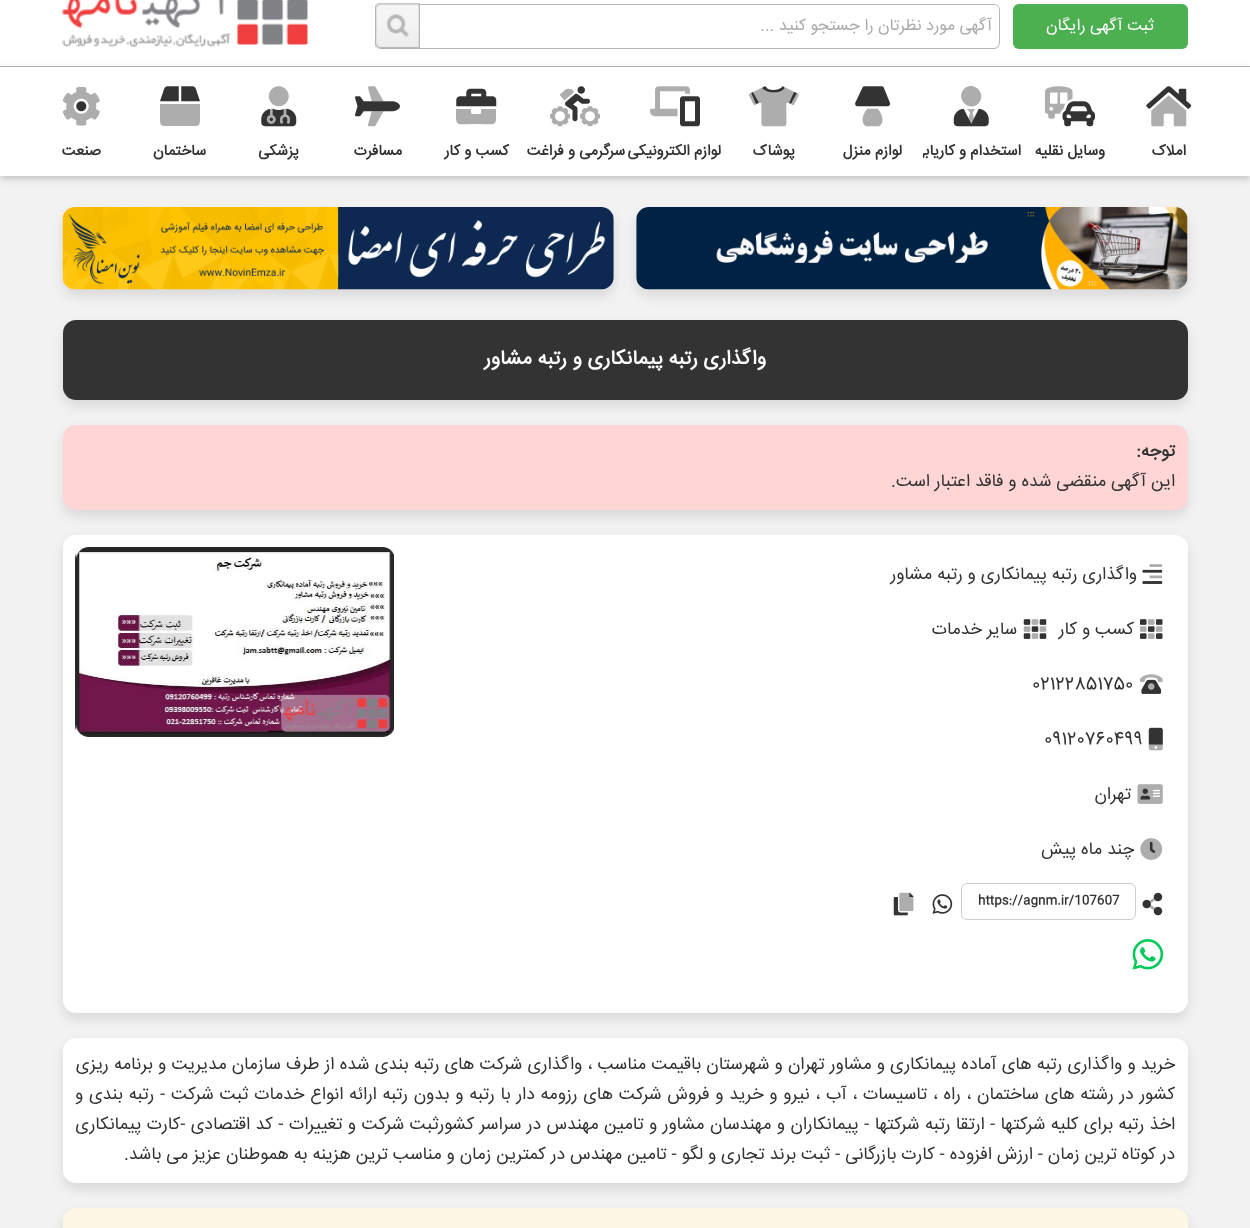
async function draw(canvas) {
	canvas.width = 1250;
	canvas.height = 1228;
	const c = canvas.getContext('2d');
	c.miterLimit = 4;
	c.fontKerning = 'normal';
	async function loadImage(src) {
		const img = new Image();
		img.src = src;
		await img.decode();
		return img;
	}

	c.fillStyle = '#f2f2f2';
	c.fillRect(0, 0, 1250, 1228);
	c.fillStyle = '#fff';
	c.fillRect(0, 0, 1250, 66);
	c.fillStyle = '#4caf50';
	c.beginPath();
	c.roundRect(1013, 4, 175, 45, 6);
	c.fill();
	c.direction = 'rtl';
	c.font = '16.25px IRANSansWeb';
	c.fillStyle = '#fff';
	c.fillText('ثبت آگهی رایگان', 1154, 30);
	c.fillStyle = '#b5b5b5';
	c.beginPath();
	c.moveTo(381, 4);
	c.lineTo(994, 4);
	c.bezierCurveTo(997, 4, 1000, 7, 1000, 10);
	c.lineTo(1000, 42);
	c.bezierCurveTo(1000, 46, 997, 49, 994, 49);
	c.lineTo(381, 49);
	c.bezierCurveTo(378, 49, 375, 46, 375, 42);
	c.lineTo(375, 10);
	c.bezierCurveTo(375, 7, 378, 4, 381, 4);
	c.closePath();
	c.moveTo(381, 5);
	c.lineTo(994, 5);
	c.bezierCurveTo(997, 5, 999, 7, 999, 10);
	c.lineTo(999, 42);
	c.bezierCurveTo(999, 45, 997, 48, 994, 48);
	c.lineTo(381, 48);
	c.bezierCurveTo(378, 48, 375, 45, 375, 42);
	c.lineTo(375, 10);
	c.bezierCurveTo(375, 7, 378, 5, 381, 5);
	c.closePath();
	c.fill('evenodd');
	c.fillStyle = '#aaa';
	c.fillText('آگهی مورد نظرتان را جستجو کنید ...', 992, 30);
	c.drawImage(await loadImage('img1.png'), 375, 3, 45, 46);
	c.drawImage(await loadImage('img2.png'), 62, 0, 246, 47);
	c.fillStyle = '#b5b5b5bf';
	c.filter = 'blur(3px)';
	c.beginPath();
	c.rect(0, 69, 1250, 110);
	c.fill();
	c.filter = 'none';
	c.fillStyle = '#fff';
	c.fillRect(0, 67, 1250, 109);
	c.fillStyle = '#b3b3b3';
	c.fillRect(0, 66, 1250, 1);
	c.drawImage(await loadImage('img3.png'), 1146, 86, 46, 23);
	c.drawImage(await loadImage('img4.png'), 1151, 95, 36, 32);
	c.font = 'bold 15px IRANSansWeb';
	c.fillStyle = '#333';
	c.fillText('املاک', 1186, 155);
	c.drawImage(await loadImage('img5.png'), 1062, 101, 33, 26);
	c.drawImage(await loadImage('img6.png'), 1045, 86, 28, 33);
	c.fillText('وسایل نقلیه', 1105, 155);
	c.drawImage(await loadImage('img7.png'), 953, 108, 36, 19);
	c.fillStyle = '#33333366';
	c.beginPath();
	c.moveTo(968.5, 118.5);
	c.lineTo(970, 113);
	c.lineTo(967.5, 109);
	c.lineTo(975, 109);
	c.lineTo(972.5, 113);
	c.lineTo(974, 118.5);
	c.lineTo(971, 124);
	c.closePath();
	c.moveTo(978.5, 103.5);
	c.bezierCurveTo(969, 112.5, 955, 98.5, 964, 89);
	c.bezierCurveTo(973.5, 80, 987.5, 94, 978.5, 103.5);
	c.closePath();
	c.fill();
	c.save();
	c.beginPath();
	c.rect(923, 139, 98, 25);
	c.clip();
	c.fillStyle = '#333';
	c.fillText('استخدام و کاریابی', 1021, 155);
	c.restore();
	c.drawImage(await loadImage('img8.png'), 855, 86, 36, 21);
	c.drawImage(await loadImage('img9.png'), 862, 108, 21, 19);
	c.fillStyle = '#333';
	c.fillText('لوازم منزل', 902, 155);
	c.beginPath();
	c.moveTo(768, 89);
	c.bezierCurveTo(773, 91, 780, 90, 783, 86);
	c.lineTo(785, 88);
	c.bezierCurveTo(780, 94, 768, 94, 762, 88);
	c.lineTo(765, 86);
	c.closePath();
	c.moveTo(751, 93);
	c.lineTo(753, 92);
	c.lineTo(759, 103);
	c.lineTo(756, 104);
	c.closePath();
	c.moveTo(794, 92);
	c.lineTo(797, 93);
	c.lineTo(791, 104);
	c.lineTo(789, 103);
	c.closePath();
	c.fill();
	c.drawImage(await loadImage('img10.png'), 748, 87, 51, 40);
	c.fillText('پوشاک', 795, 155);
	c.drawImage(await loadImage('img12.png'), 680, 96, 20, 31);
	c.drawImage(await loadImage('img11.png'), 650, 86, 40, 31);
	c.fillText('لوازم الکترونیکی', 721, 155);
	c.drawImage(await loadImage('img13.png'), 565, 86, 25, 36);
	c.drawImage(await loadImage('img14.png'), 550, 88, 50, 39);
	c.fillText('سرگرمی و فراغت', 625, 155);
	c.drawImage(await loadImage('img15.png'), 456, 88, 41, 19);
	c.fillStyle = '#adadad';
	c.beginPath();
	c.moveTo(481, 109);
	c.lineTo(496, 109);
	c.bezierCurveTo(496, 128, 498, 124, 476, 124);
	c.bezierCurveTo(455, 124, 456, 128, 456, 109);
	c.lineTo(471, 109);
	c.bezierCurveTo(471, 115, 471, 114, 477, 114);
	c.bezierCurveTo(482, 114, 481, 114, 481, 109);
	c.closePath();
	c.fill();
	c.fillStyle = '#333';
	c.fillText('کسب و کار', 509, 155);
	c.drawImage(await loadImage('img17.png'), 355, 96, 45, 21);
	c.drawImage(await loadImage('img16.png'), 367, 86, 17, 41);
	c.fillText('مسافرت', 402, 155);
	c.drawImage(await loadImage('img19.png'), 261, 108, 36, 19);
	c.drawImage(await loadImage('img18.png'), 267, 86, 23, 38);
	c.fillText('پزشکی', 299, 155);
	c.drawImage(await loadImage('img20.png'), 160, 86, 40, 16);
	c.fillStyle = '#adadad';
	c.beginPath();
	c.moveTo(200, 104);
	c.lineTo(200, 119);
	c.bezierCurveTo(200, 127, 198, 126, 191, 126);
	c.lineTo(169, 126);
	c.bezierCurveTo(162, 126, 160, 127, 160, 119);
	c.lineTo(160, 104);
	c.closePath();
	c.fill();
	c.fillStyle = '#333';
	c.fillText('ساختمان', 206, 155);
	c.drawImage(await loadImage('img22.png'), 76, 101, 11, 11);
	c.drawImage(await loadImage('img21.png'), 62, 86, 38, 40);
	c.fillText('صنعت', 101, 155);
	c.fillStyle = '#0000001a';
	c.filter = 'blur(6px)';
	c.beginPath();
	c.roundRect(636, 214, 552, 82, 13);
	c.fill();
	c.filter = 'none';
	c.drawImage(await loadImage('img23.png'), 636, 207, 552, 83);
	c.filter = 'blur(6px)';
	c.beginPath();
	c.roundRect(63, 214, 551, 82, 13);
	c.fill();
	c.filter = 'none';
	c.drawImage(await loadImage('img24.png'), 62, 207, 552, 83);
	c.filter = 'blur(6px)';
	c.beginPath();
	c.roundRect(63, 326, 1125, 80, 13);
	c.fill();
	c.filter = 'none';
	c.fillStyle = '#333';
	c.beginPath();
	c.roundRect(63, 320, 1125, 80, 13);
	c.fill();
	c.font = 'bold 20px IRANSansWeb';
	c.fillStyle = '#fff';
	c.fillText('واگذاری رتبه پیمانکاری و رتبه مشاور', 766, 364);
	c.fillStyle = '#0000001a';
	c.filter = 'blur(6px)';
	c.beginPath();
	c.roundRect(63, 431, 1125, 85, 13);
	c.fill();
	c.filter = 'none';
	c.fillStyle = '#ffd5d5';
	c.beginPath();
	c.roundRect(63, 425, 1125, 85, 13);
	c.fill();
	c.font = 'bold 17.5px IRANSansWeb';
	c.fillStyle = '#333';
	c.fillText('توجه:', 1175, 456);
	c.font = '17.5px IRANSansWeb';
	c.fillText('این آگهی منقضی شده و فاقد اعتبار است.', 1175, 486);
	c.fillStyle = '#0000001a';
	c.filter = 'blur(6px)';
	c.beginPath();
	c.roundRect(63, 541, 1125, 478, 13);
	c.fill();
	c.filter = 'none';
	c.fillStyle = '#fff';
	c.beginPath();
	c.roundRect(63, 535, 1125, 478, 13);
	c.fill();
	c.drawImage(await loadImage('img26.png'), 1142, 569, 21, 15);
	c.drawImage(await loadImage('img25.png'), 1149, 564, 14, 15);
	c.font = '17.5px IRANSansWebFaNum';
	c.fillStyle = '#333';
	c.fillText('واگذاری رتبه پیمانکاری و رتبه مشاور', 1137, 579);
	c.drawImage(await loadImage('img27.png'), 1140, 619, 23, 20);
	c.drawImage(await loadImage('img28.png'), 1140, 619, 23, 20);
	c.fillText('کسب و کار', 1134, 634);
	c.drawImage(await loadImage('img29.png'), 1023, 619, 24, 20);
	c.drawImage(await loadImage('img30.png'), 1023, 619, 24, 20);
	c.fillText('سایر خدمات', 1017, 634);
	c.drawImage(await loadImage('img32.png'), 1141, 679, 21, 15);
	c.drawImage(await loadImage('img31.png'), 1140, 674, 23, 16);
	c.direction = 'ltr';
	c.fillText('02122851750', 1032, 689);
	c.drawImage(await loadImage('img33.png'), 1148, 727, 15, 18);
	c.drawImage(await loadImage('img34.png'), 1148, 744, 15, 7);
	c.fillText('09120760499', 1044, 744);
	c.drawImage(await loadImage('img36.png'), 1140, 788, 11, 12);
	c.drawImage(await loadImage('img35.png'), 1137, 784, 26, 20);
	c.direction = 'rtl';
	c.fillText('تهران', 1131, 799);
	c.drawImage(await loadImage('img38.png'), 1149, 842, 7, 12);
	c.drawImage(await loadImage('img37.png'), 1140, 838, 23, 22);
	c.fillText('چند ماه پیش', 1134, 854);
	c.drawImage(await loadImage('img39.png'), 1142, 892, 21, 24);
	c.drawImage(await loadImage('img40.png'), 1149, 898, 7, 12);
	c.beginPath();
	c.roundRect(961.5, 883.5, 174, 36, 5.5);
	c.strokeStyle = '#cdcdcd';
	c.stroke();
	c.direction = 'ltr';
	c.font = 'bold 12.5px IRANSansWeb';
	c.fillText('https://agnm.ir/107607', 978, 904);
	c.drawImage(await loadImage('img41.png'), 932, 894, 21, 20);
	c.drawImage(await loadImage('img42.png'), 893, 892, 21, 24);
	c.drawImage(await loadImage('img43.png'), 899, 892, 15, 20);
	c.drawImage(await loadImage('img44.png'), 1132, 939, 32, 31);
	c.drawImage(await loadImage('img45.png'), 76, 547, 318, 190);
	c.drawImage(await loadImage('img46.png'), 75, 553, 1, 178);
	c.fillStyle = '#0000001a';
	c.filter = 'blur(6px)';
	c.beginPath();
	c.roundRect(63, 1044, 1125, 145, 13);
	c.fill();
	c.filter = 'none';
	c.fillStyle = '#fff';
	c.beginPath();
	c.roundRect(63, 1038, 1125, 145, 13);
	c.fill();
	c.wordSpacing = '0.25px';
	c.direction = 'rtl';
	c.font = '17.5px IRANSansWeb';
	c.fillStyle = '#333';
	c.fillText('خرید و واگذاری رتبه های آماده پیمانکاری و مشاور تهران و شهرستان باقیمت مناسب ، واگذاری شرکت های رتبه بندی شده از طرف سازمان مدیریت و برنامه ریزی', 1175, 1069);
	c.wordSpacing = '0.85px';
	c.fillText('کشور در رشته های ساختمان ، راه ، تاسیسات ، آب ، نیرو و خرید و فروش شرکت های رزومه دار با رتبه و بدون رتبه ارائه انواع خدمات ثبت شرکت - رتبه بندی و', 1175, 1099);
	c.wordSpacing = '0.5px';
	c.fillText('اخذ رتبه برای کلیه شرکتها - ارتقا رتبه شرکتها - پیمانکاران و مهندسان مشاور و تامین مهندس در سراسر کشورثبت شرکت و تغییرات - کد اقتصادی -کارت پیمانکاری', 1175, 1129);
	c.wordSpacing = '0px';
	c.fillText('در کوتاه ترین زمان - ارزش افزوده - کارت بازرگانی - ثبت برند تجاری و لگو - تامین مهندس در کمترین زمان و مناسب ترین هزینه به هموطنان عزیز می باشد.', 1175, 1159);
	c.fillStyle = '#0000001a';
	c.filter = 'blur(6px)';
	c.beginPath();
	c.roundRect(63, 1214, 1125, 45, 13);
	c.fill();
	c.filter = 'none';
	c.fillStyle = '#fcf8e3';
	c.beginPath();
	c.roundRect(63, 1208, 1125, 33, 13);
	c.fill();
}

draw(document.querySelector('canvas'));
